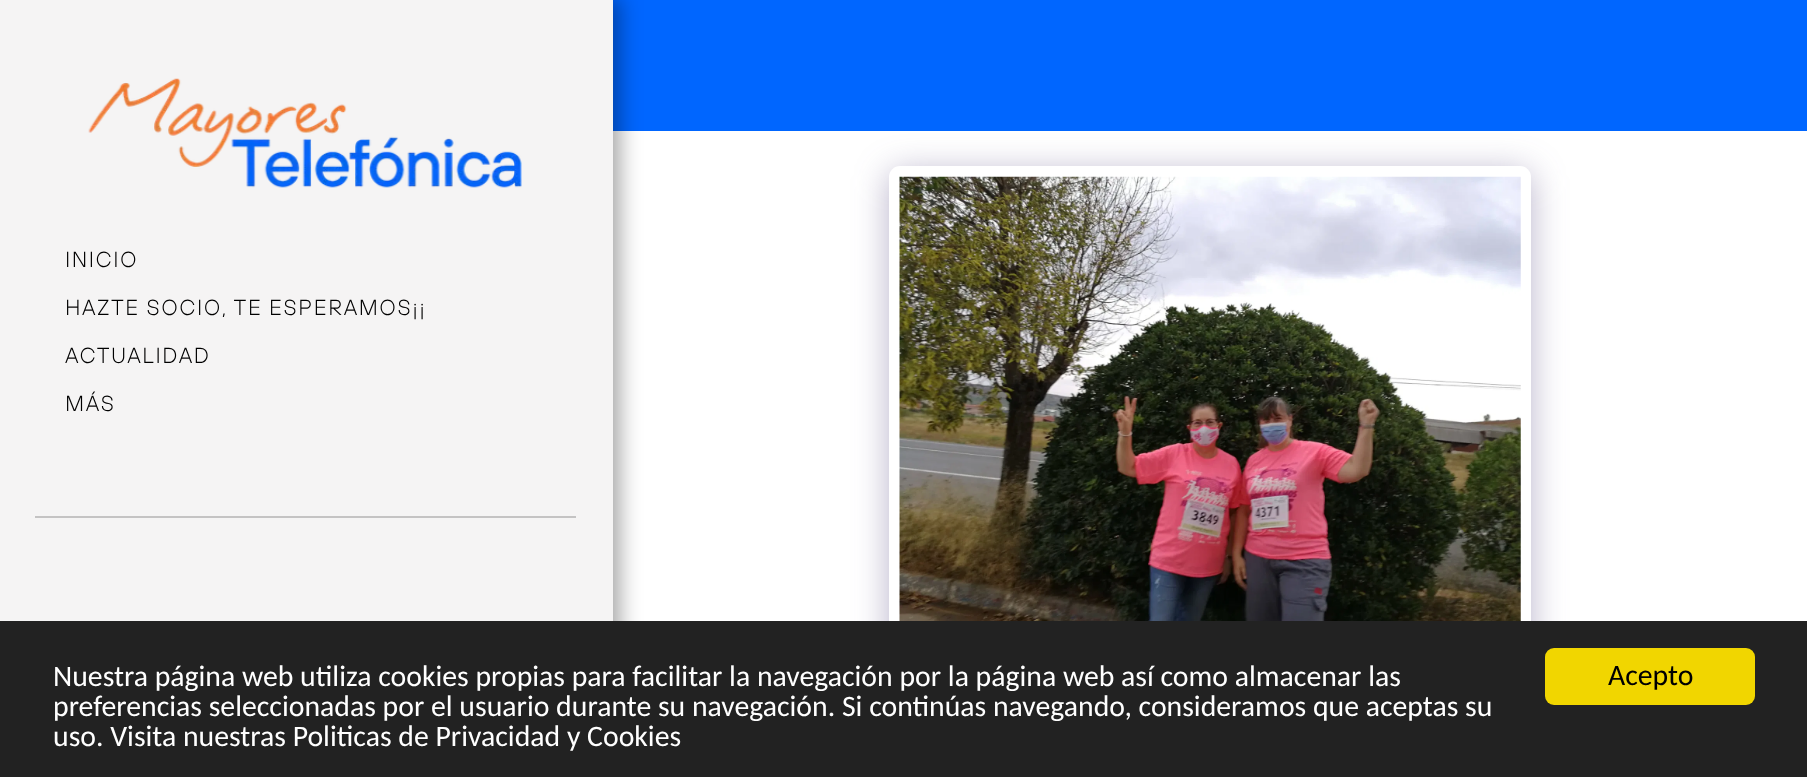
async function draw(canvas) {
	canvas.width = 1807;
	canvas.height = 777;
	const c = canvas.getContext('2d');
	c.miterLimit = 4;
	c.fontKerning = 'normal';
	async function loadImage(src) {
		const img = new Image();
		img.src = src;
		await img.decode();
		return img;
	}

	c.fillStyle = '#fff';
	c.fillRect(0, 0, 1807, 777);
	c.fillStyle = '#06f';
	c.fillRect(613, 0, 1194, 131);
	c.fillStyle = '#00000059';
	c.filter = 'blur(10.5px)';
	c.beginPath();
	c.rect(0, -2, 620, 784);
	c.fill();
	c.filter = 'none';
	c.fillStyle = '#f5f4f4';
	c.fillRect(0, 0, 613, 621);
	c.drawImage(await loadImage('img1.png'), 88, 78, 434, 110);
	c.letterSpacing = '2.1px';
	c.font = 'bold 21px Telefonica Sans';
	c.fillStyle = '#000';
	for (const [text, x, y] of [
		['INICIO', 65, 267],
		['HAZTE SOCIO, TE ESPERAMOS¡¡', 65, 315],
		['ACTUALIDAD', 65, 363],
		['MÁS', 65, 411],
	]) {
		c.fillText(text, x, y);
	}
	c.fillStyle = '#c4c3c3';
	c.fillRect(35, 516, 541, 2);
	c.fillStyle = '#4d3f7a66';
	c.filter = 'blur(17.5px)';
	c.beginPath();
	c.roundRect(889, 172, 642, 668, 11);
	c.fill();
	c.filter = 'none';
	c.fillStyle = '#fff';
	c.beginPath();
	c.roundRect(889, 166, 642, 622, 11);
	c.fill();
	c.drawImage(await loadImage('img2.png'), 899, 176, 622, 445);
	c.fillStyle = '#222';
	c.fillRect(0, 621, 1807, 156);
	c.letterSpacing = '0px';
	c.font = '29.75px Carlito';
	c.fillStyle = '#fff';
	for (const [text, x, y] of [
		['Nuestra página web utiliza cookies propias para facilitar la navegación por la página web así como almacenar las', 53, 686],
		['preferencias seleccionadas por el usuario durante su navegación. Si continúas navegando, consideramos que aceptas su', 53, 716],
		['uso. Visita nuestras Politicas de Privacidad y Cookies', 53, 746],
	]) {
		c.fillText(text, x, y);
	}
	c.fillStyle = '#f1d600';
	c.beginPath();
	c.roundRect(1545, 648, 210, 57, 9);
	c.fill();
	c.fillStyle = '#000';
	c.fillText('Acepto', 1608, 685);
}

draw(document.querySelector('canvas'));
